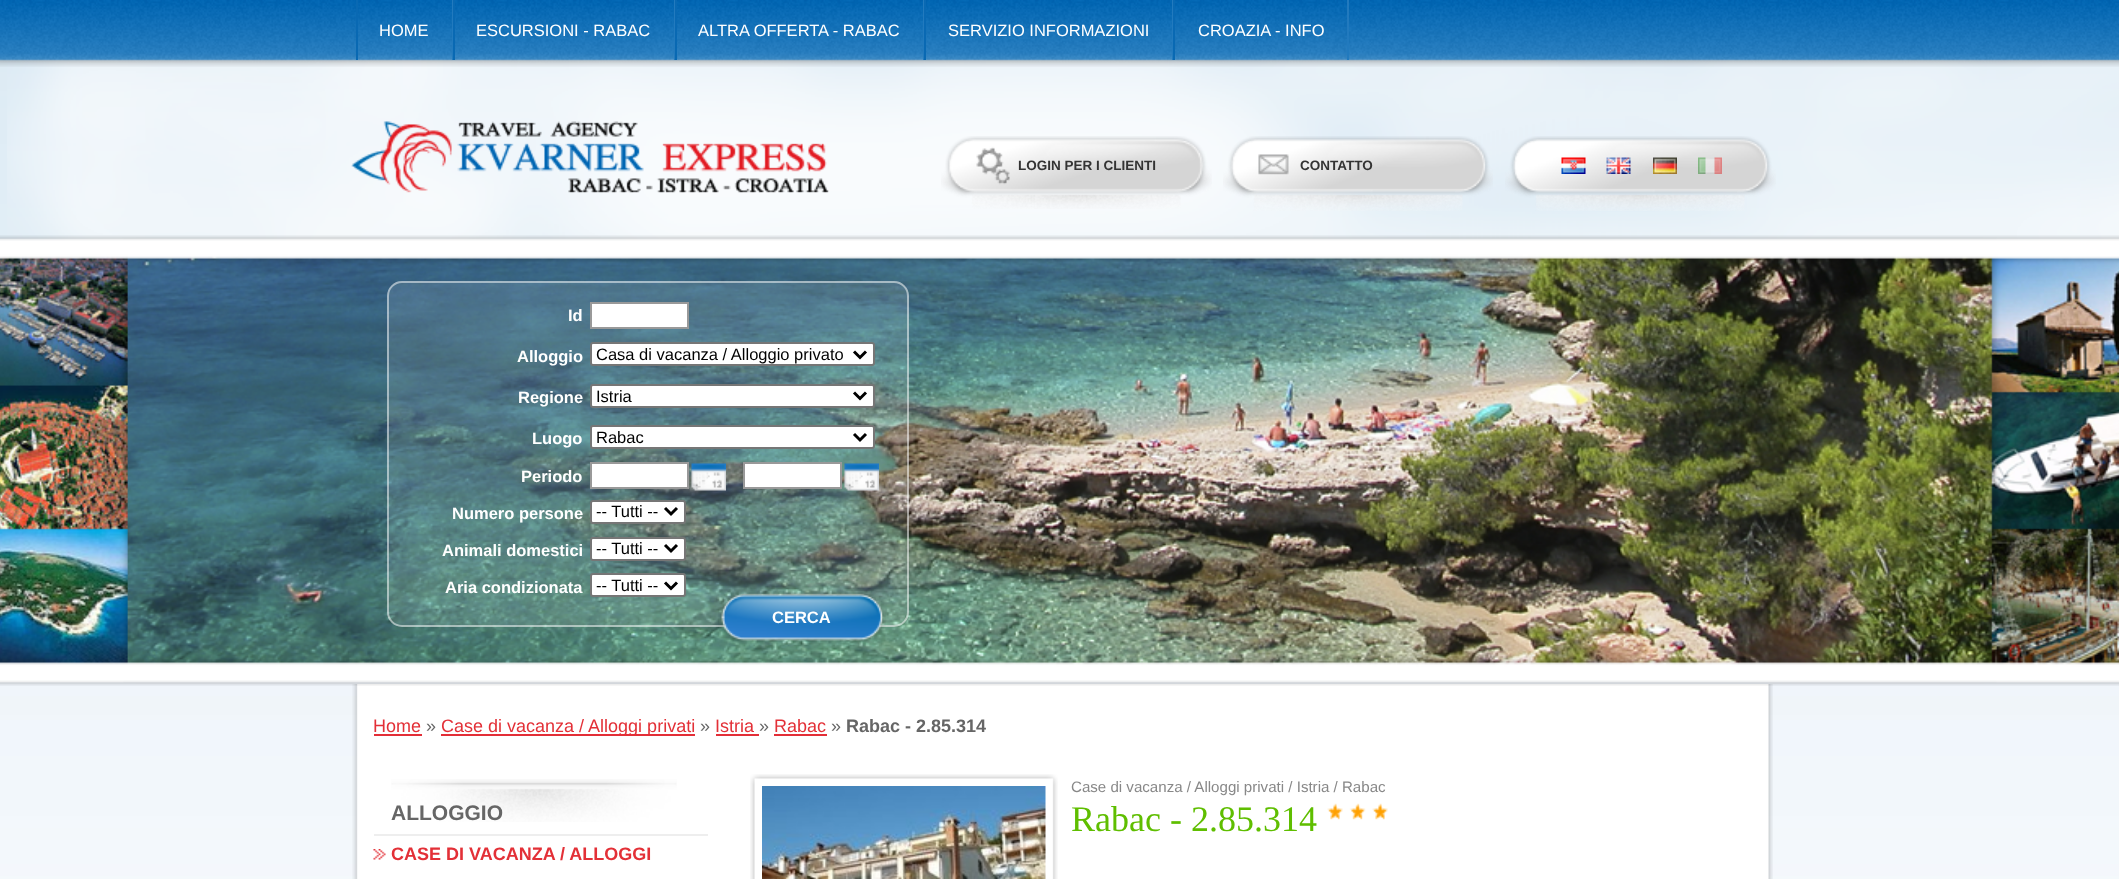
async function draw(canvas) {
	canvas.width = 2119;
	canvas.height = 879;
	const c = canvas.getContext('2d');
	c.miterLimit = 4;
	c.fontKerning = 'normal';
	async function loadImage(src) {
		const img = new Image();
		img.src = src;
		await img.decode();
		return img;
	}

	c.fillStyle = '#fff';
	c.fillRect(0, 0, 2119, 879);
	c.drawImage(await loadImage('img1.png'), 0, 59, 2119, 820);
	c.drawImage(await loadImage('img2.png'), 7, 59, 2112, 182);
	c.drawImage(await loadImage('img3.png'), 0, 0, 2119, 67);
	c.fillStyle = '#227abe';
	c.fillRect(452, 0, 1, 60);
	c.fillStyle = '#0969b3';
	c.fillRect(356, 0, 2, 60);
	c.font = '16.5px Liberation Sans';
	c.fillStyle = '#fff';
	c.fillText('HOME', 379, 36);
	c.fillStyle = '#227abe';
	c.fillRect(674, 0, 1, 60);
	c.fillStyle = '#0969b3';
	c.fillRect(453, 0, 2, 60);
	c.fillStyle = '#fff';
	c.fillText('ESCURSIONI - RABAC', 476, 36);
	c.fillStyle = '#227abe';
	c.fillRect(923, 0, 1, 60);
	c.fillStyle = '#0969b3';
	c.fillRect(675, 0, 2, 60);
	c.fillStyle = '#fff';
	c.fillText('ALTRA OFFERTA - RABAC', 698, 36);
	c.fillStyle = '#227abe';
	c.fillRect(1172, 0, 1, 60);
	c.fillStyle = '#0969b3';
	c.fillRect(924, 0, 2, 60);
	c.fillStyle = '#fff';
	c.fillText('SERVIZIO INFORMAZIONI', 948, 36);
	c.fillStyle = '#227abe';
	c.fillRect(1347, 0, 2, 60);
	c.fillStyle = '#0969b3';
	c.fillRect(1173, 0, 2, 60);
	c.fillStyle = '#fff';
	c.fillText('CROAZIA - INFO', 1198, 36);
	c.drawImage(await loadImage('img4.png'), 351, 121, 478, 72);
	c.drawImage(await loadImage('img5.png'), 941, 136, 271, 73);
	c.font = 'bold 13.5px Liberation Sans';
	c.fillStyle = '#333';
	c.fillText('LOGIN PER I CLIENTI', 1018, 170);
	c.drawImage(await loadImage('img6.png'), 1223, 136, 270, 75);
	c.fillText('CONTATTO', 1300, 170);
	c.drawImage(await loadImage('img7.png'), 1505, 136, 271, 75);
	c.drawImage(await loadImage('img8.png'), 1561, 157, 25, 17);
	c.drawImage(await loadImage('img9.png'), 1606, 157, 25, 17);
	c.drawImage(await loadImage('img10.png'), 1653, 157, 24, 17);
	c.drawImage(await loadImage('img11.png'), 1698, 157, 24, 17);
	c.drawImage(await loadImage('img16.png'), 352, 684, 1421, 195);
	c.drawImage(await loadImage('img12.png'), 0, 235, 2119, 451);
	c.fillStyle = '#ffffff1a';
	c.beginPath();
	c.roundRect(387, 281, 522, 346, 15);
	c.fill();
	c.beginPath();
	c.roundRect(388, 282, 520, 344, 14);
	c.strokeStyle = '#ffffff80';
	c.lineWidth = 2;
	c.stroke();
	c.font = 'bold 16.5px Liberation Sans';
	c.fillStyle = '#fff';
	c.fillText('Id', 568, 321);
	c.beginPath();
	c.rect(591, 303, 97, 25);
	c.fill();
	c.strokeStyle = '#999';
	c.stroke();
	c.fillText('Alloggio', 517, 362);
	c.beginPath();
	c.roundRect(591, 343, 283, 22, 2);
	c.fill();
	c.strokeStyle = '#767676';
	c.stroke();
	c.beginPath();
	c.moveTo(854, 351.5);
	c.lineTo(860, 357.5);
	c.lineTo(866, 351.5);
	c.strokeStyle = '#000';
	c.lineWidth = 3;
	c.stroke();
	c.font = '16.5px Liberation Sans';
	c.fillStyle = '#000';
	c.fillText('Casa di vacanza / Alloggio privato', 596, 360);
	c.font = 'bold 16.5px Liberation Sans';
	c.fillStyle = '#fff';
	c.fillText('Regione', 518, 403);
	c.beginPath();
	c.roundRect(591, 385, 283, 22, 2);
	c.fill();
	c.strokeStyle = '#767676';
	c.lineWidth = 2;
	c.stroke();
	c.beginPath();
	c.moveTo(854, 392.5);
	c.lineTo(860, 398.5);
	c.lineTo(866, 392.5);
	c.strokeStyle = '#000';
	c.lineWidth = 3;
	c.stroke();
	c.font = '16.5px Liberation Sans';
	c.fillStyle = '#000';
	c.fillText('Istria', 596, 402);
	c.font = 'bold 16.5px Liberation Sans';
	c.fillStyle = '#fff';
	c.fillText('Luogo', 532, 444);
	c.beginPath();
	c.roundRect(591, 426, 283, 22, 2);
	c.fill();
	c.strokeStyle = '#767676';
	c.lineWidth = 2;
	c.stroke();
	c.beginPath();
	c.moveTo(854, 434);
	c.lineTo(860, 440);
	c.lineTo(866, 434);
	c.strokeStyle = '#000';
	c.lineWidth = 3;
	c.stroke();
	c.font = '16.5px Liberation Sans';
	c.fillStyle = '#000';
	c.fillText('Rabac', 596, 443);
	c.font = 'bold 16.5px Liberation Sans';
	c.fillStyle = '#fff';
	c.fillText('Periodo', 521, 482);
	c.beginPath();
	c.rect(591, 463, 97, 25);
	c.fill();
	c.strokeStyle = '#999';
	c.lineWidth = 2;
	c.stroke();
	c.drawImage(await loadImage('img13.png'), 691, 463, 35, 28);
	c.beginPath();
	c.rect(744, 463, 97, 25);
	c.fill();
	c.stroke();
	c.drawImage(await loadImage('img14.png'), 844, 463, 35, 28);
	c.fillText('Numero persone', 452, 519);
	c.beginPath();
	c.roundRect(591, 501, 94, 22, 2);
	c.fill();
	c.strokeStyle = '#767676';
	c.stroke();
	c.beginPath();
	c.moveTo(665, 508);
	c.lineTo(671, 514);
	c.lineTo(677, 508);
	c.strokeStyle = '#000';
	c.lineWidth = 3;
	c.stroke();
	c.font = '16.5px Liberation Sans';
	c.fillStyle = '#000';
	c.fillText('-- Tutti --', 596, 517);
	c.font = 'bold 16.5px Liberation Sans';
	c.fillStyle = '#fff';
	c.fillText('Animali domestici', 442, 556);
	c.beginPath();
	c.roundRect(591, 538, 94, 22, 2);
	c.fill();
	c.strokeStyle = '#767676';
	c.lineWidth = 2;
	c.stroke();
	c.beginPath();
	c.moveTo(665, 545);
	c.lineTo(671, 551);
	c.lineTo(677, 545);
	c.strokeStyle = '#000';
	c.lineWidth = 3;
	c.stroke();
	c.font = '16.5px Liberation Sans';
	c.fillStyle = '#000';
	c.fillText('-- Tutti --', 596, 554);
	c.font = 'bold 16.5px Liberation Sans';
	c.fillStyle = '#fff';
	c.fillText('Aria condizionata', 445, 593);
	c.beginPath();
	c.roundRect(591, 574, 94, 22, 2);
	c.fill();
	c.strokeStyle = '#767676';
	c.lineWidth = 2;
	c.stroke();
	c.beginPath();
	c.moveTo(665, 582.5);
	c.lineTo(671, 588.5);
	c.lineTo(677, 582.5);
	c.strokeStyle = '#000';
	c.lineWidth = 3;
	c.stroke();
	c.font = '16.5px Liberation Sans';
	c.fillStyle = '#000';
	c.fillText('-- Tutti --', 596, 591);
	c.drawImage(await loadImage('img15.png'), 718, 590, 168, 54);
	c.font = 'bold 16.5px Liberation Sans';
	c.fillStyle = '#fff';
	c.fillText('CERCA', 772, 623);
	c.font = '18px Liberation Sans';
	c.fillStyle = '#e33037';
	c.fillText('Home', 373, 732);
	c.fillStyle = '#e32e37';
	c.fillRect(374, 734, 48, 2);
	c.fillStyle = '#666';
	c.fillText('»', 426, 732);
	c.fillStyle = '#e32e37';
	c.fillRect(441, 734, 254, 2);
	c.fillStyle = '#e33037';
	c.fillText('Case di vacanza / Alloggi privati', 441, 732);
	c.fillStyle = '#666';
	c.fillText('»', 700, 732);
	c.fillStyle = '#e33037';
	c.fillText('Istria', 715, 732);
	c.fillStyle = '#e32e37';
	c.fillRect(716, 734, 43, 2);
	c.fillStyle = '#666';
	c.fillText('»', 759, 732);
	c.fillStyle = '#e33037';
	c.fillText('Rabac', 774, 732);
	c.fillStyle = '#e32e37';
	c.fillRect(774, 734, 53, 2);
	c.fillStyle = '#666';
	c.fillText('»', 831, 732);
	c.font = 'bold 18px Liberation Sans';
	c.fillText('Rabac - 2.85.314', 846, 732);
	c.drawImage(await loadImage('img17.png'), 391, 779, 286, 43);
	c.fillStyle = '#eee';
	c.fillRect(374, 834, 334, 2);
	c.font = 'bold 21px Liberation Sans';
	c.fillStyle = '#666';
	c.fillText('ALLOGGIO', 391, 820);
	c.drawImage(await loadImage('img18.png'), 373, 849, 13, 11);
	c.font = 'bold 18px Liberation Sans';
	c.fillStyle = '#e33037';
	c.fillText('CASE DI VACANZA / ALLOGGI', 391, 860);
	c.drawImage(await loadImage('img19.png'), 750, 774, 308, 105);
	c.drawImage(await loadImage('img20.png'), 762, 786, 284, 93);
	c.font = '15.1px Liberation Sans';
	c.fillStyle = '#888';
	c.fillText('Case di vacanza / Alloggi privati / Istria / Rabac', 1071, 792);
	c.font = '36px Liberation Serif';
	c.fillStyle = '#5fbe00';
	c.fillText('Rabac - 2.85.314', 1071, 831);
	c.drawImage(await loadImage('img21.png'), 1327, 803, 61, 17);
}

draw(document.querySelector('canvas'));
